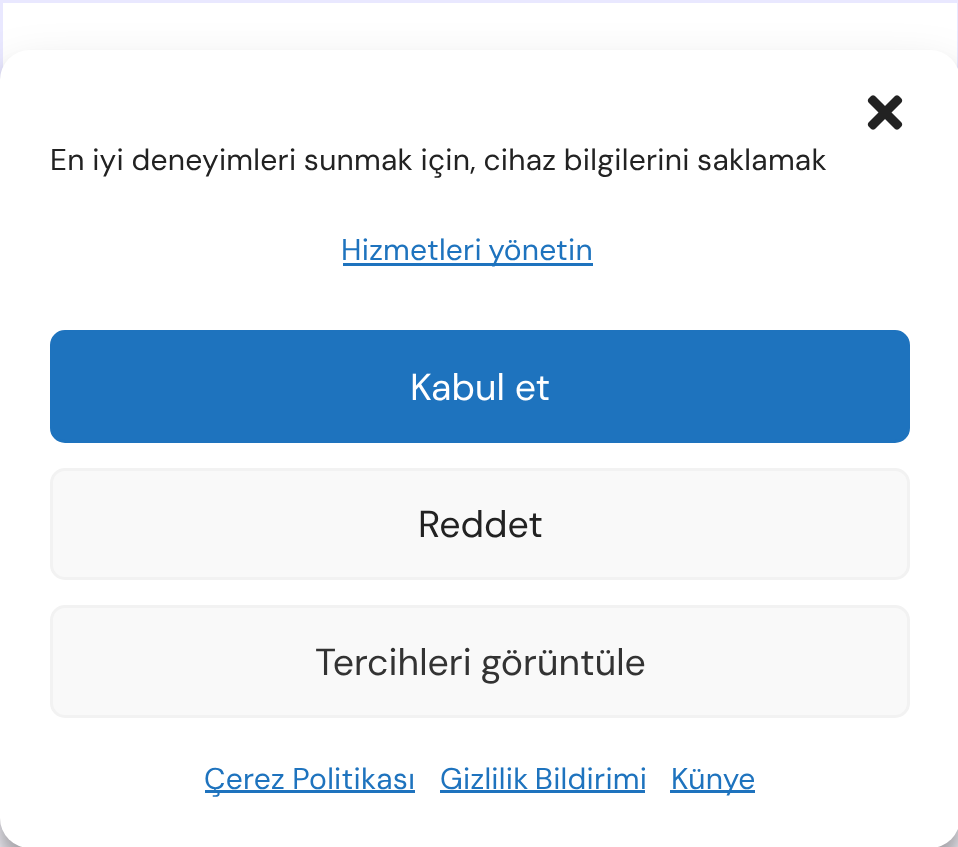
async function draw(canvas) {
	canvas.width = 958;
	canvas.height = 847;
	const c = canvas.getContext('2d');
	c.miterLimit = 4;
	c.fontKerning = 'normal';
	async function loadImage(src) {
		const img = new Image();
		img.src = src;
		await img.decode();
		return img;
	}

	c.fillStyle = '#faf8ff';
	c.fillRect(0, 0, 958, 847);
	c.fillStyle = '#fff';
	c.fillRect(3, 3, 954, 64);
	c.strokeStyle = '#e9e8ff';
	c.lineWidth = 3;
	c.strokeRect(1.5, 1.5, 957, 437);
	c.fillStyle = '#0000003b';
	c.filter = 'blur(7.5px)';
	c.beginPath();
	c.roundRect(0, 65, 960, 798, 30);
	c.fill();
	c.filter = 'none';
	c.fillStyle = '#00000030';
	c.filter = 'blur(25px)';
	c.beginPath();
	c.roundRect(0, 75, 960, 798, 30);
	c.fill();
	c.filter = 'none';
	c.fillStyle = '#fff';
	c.beginPath();
	c.roundRect(0, 50, 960, 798, 30);
	c.fill();
	c.drawImage(await loadImage('img1.png'), 867, 95, 36, 35);
	c.letterSpacing = '0.25px';
	c.wordSpacing = '-0.75px';
	c.font = '30px DM Sans';
	c.fillStyle = '#222';
	c.fillText('En iyi deneyimleri sunmak için, cihaz bilgilerini saklamak', 50, 170);
	c.fillStyle = '#1e73be';
	c.fillRect(343, 263, 250, 3);
	c.wordSpacing = '-2px';
	c.fillText('Hizmetleri yönetin', 341, 260);
	c.beginPath();
	c.roundRect(51.5, 331.5, 857, 110, 13.5);
	c.fill();
	c.strokeStyle = '#1e73be';
	c.stroke();
	c.letterSpacing = '0px';
	c.wordSpacing = '0px';
	c.font = '37.5px DM Sans';
	c.fillStyle = '#fff';
	c.fillText('Kabul et', 410, 400);
	c.fillStyle = '#f9f9f9';
	c.beginPath();
	c.roundRect(51.5, 469.5, 857, 109, 13.5);
	c.fill();
	c.strokeStyle = '#f2f2f2';
	c.stroke();
	c.fillStyle = '#222';
	c.fillText('Reddet', 418, 537);
	c.fillStyle = '#f9f9f9';
	c.beginPath();
	c.roundRect(51.5, 606.5, 857, 110, 13.5);
	c.fill();
	c.stroke();
	c.wordSpacing = '-1px';
	c.fillStyle = '#333';
	c.fillText('Tercihleri görüntüle', 315, 675);
	c.fillStyle = '#1e73be';
	c.fillRect(205, 790, 210, 3);
	c.letterSpacing = '0.25px';
	c.font = '30px DM Sans';
	c.fillText('Çerez Politikası', 204, 789);
	c.wordSpacing = '-2px';
	c.fillText('Gizlilik Bildirimi', 440, 789);
	c.fillRect(440, 790, 205, 3);
	c.fillRect(670, 790, 85, 3);
	c.wordSpacing = '0px';
	c.fillText('Künye', 671, 789);
}

draw(document.querySelector('canvas'));
